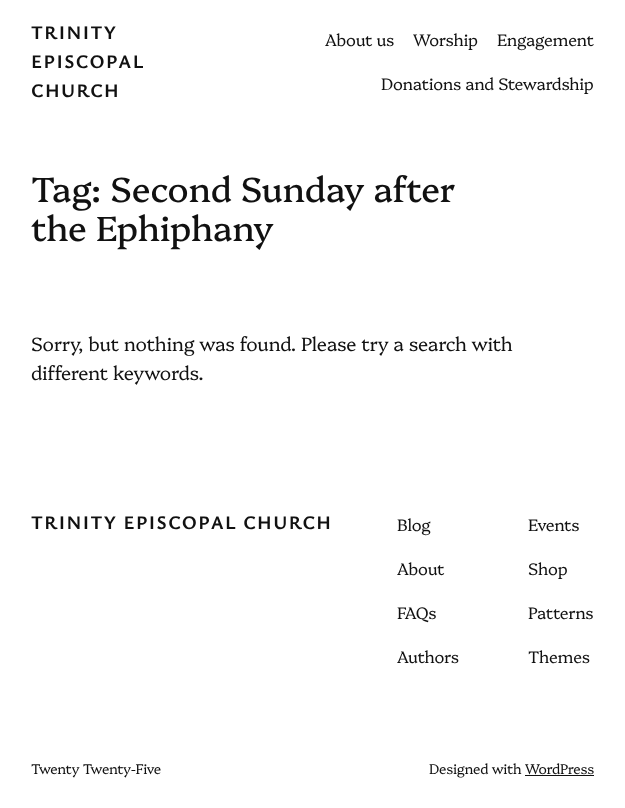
async function draw(canvas) {
	canvas.width = 625;
	canvas.height = 808;
	const c = canvas.getContext('2d');
	c.miterLimit = 4;
	c.fontKerning = 'normal';

	c.fillStyle = '#fff';
	c.fillRect(0, 0, 625, 808);
	c.letterSpacing = '1.4px';
	c.font = 'bold 19.2px Ysabeau Office';
	c.fillStyle = '#111';
	for (const [text, x, y] of [
		['TRINITY', 31, 39],
		['EPISCOPAL', 31, 68],
		['CHURCH', 31, 97],
	]) {
		c.fillText(text, x, y);
	}
	c.letterSpacing = '-0.22px';
	c.font = '300 16.6px Platypi';
	for (const [text, x, y] of [
		['About us', 325, 46],
		['Worship', 413, 46],
		['Engagement', 497, 46],
		['Donations and Stewardship', 381, 90],
	]) {
		c.fillText(text, x, y);
	}
	c.letterSpacing = '-0.1px';
	c.font = '34.9px Platypi';
	c.fillText('Tag: Second Sunday after', 31, 202);
	c.fillText('the Ephiphany', 31, 241);
	c.letterSpacing = '-0.22px';
	c.font = '300 19.2px Platypi';
	c.fillText('Sorry, but nothing was found. Please try a search with', 31, 351);
	c.fillText('different keywords.', 31, 380);
	c.letterSpacing = '1.4px';
	c.font = 'bold 19.2px Ysabeau Office';
	c.fillText('TRINITY EPISCOPAL CHURCH', 31, 529);
	c.letterSpacing = '-0.22px';
	c.font = '300 16.6px Platypi';
	for (const [text, x, y] of [
		['Blog', 397, 531],
		['About', 397, 575],
		['FAQs', 397, 619],
		['Authors', 397, 663],
		['Events', 528, 531],
		['Shop', 528, 575],
		['Patterns', 528, 619],
		['Themes', 528, 663],
	]) {
		c.fillText(text, x, y);
	}
	c.font = '300 14px Platypi';
	c.fillText('Twenty Twenty-Five', 31, 774);
	c.fillText('Designed with WordPress', 429, 774);
	c.fillRect(525, 775, 69, 1);
}

draw(document.querySelector('canvas'));
